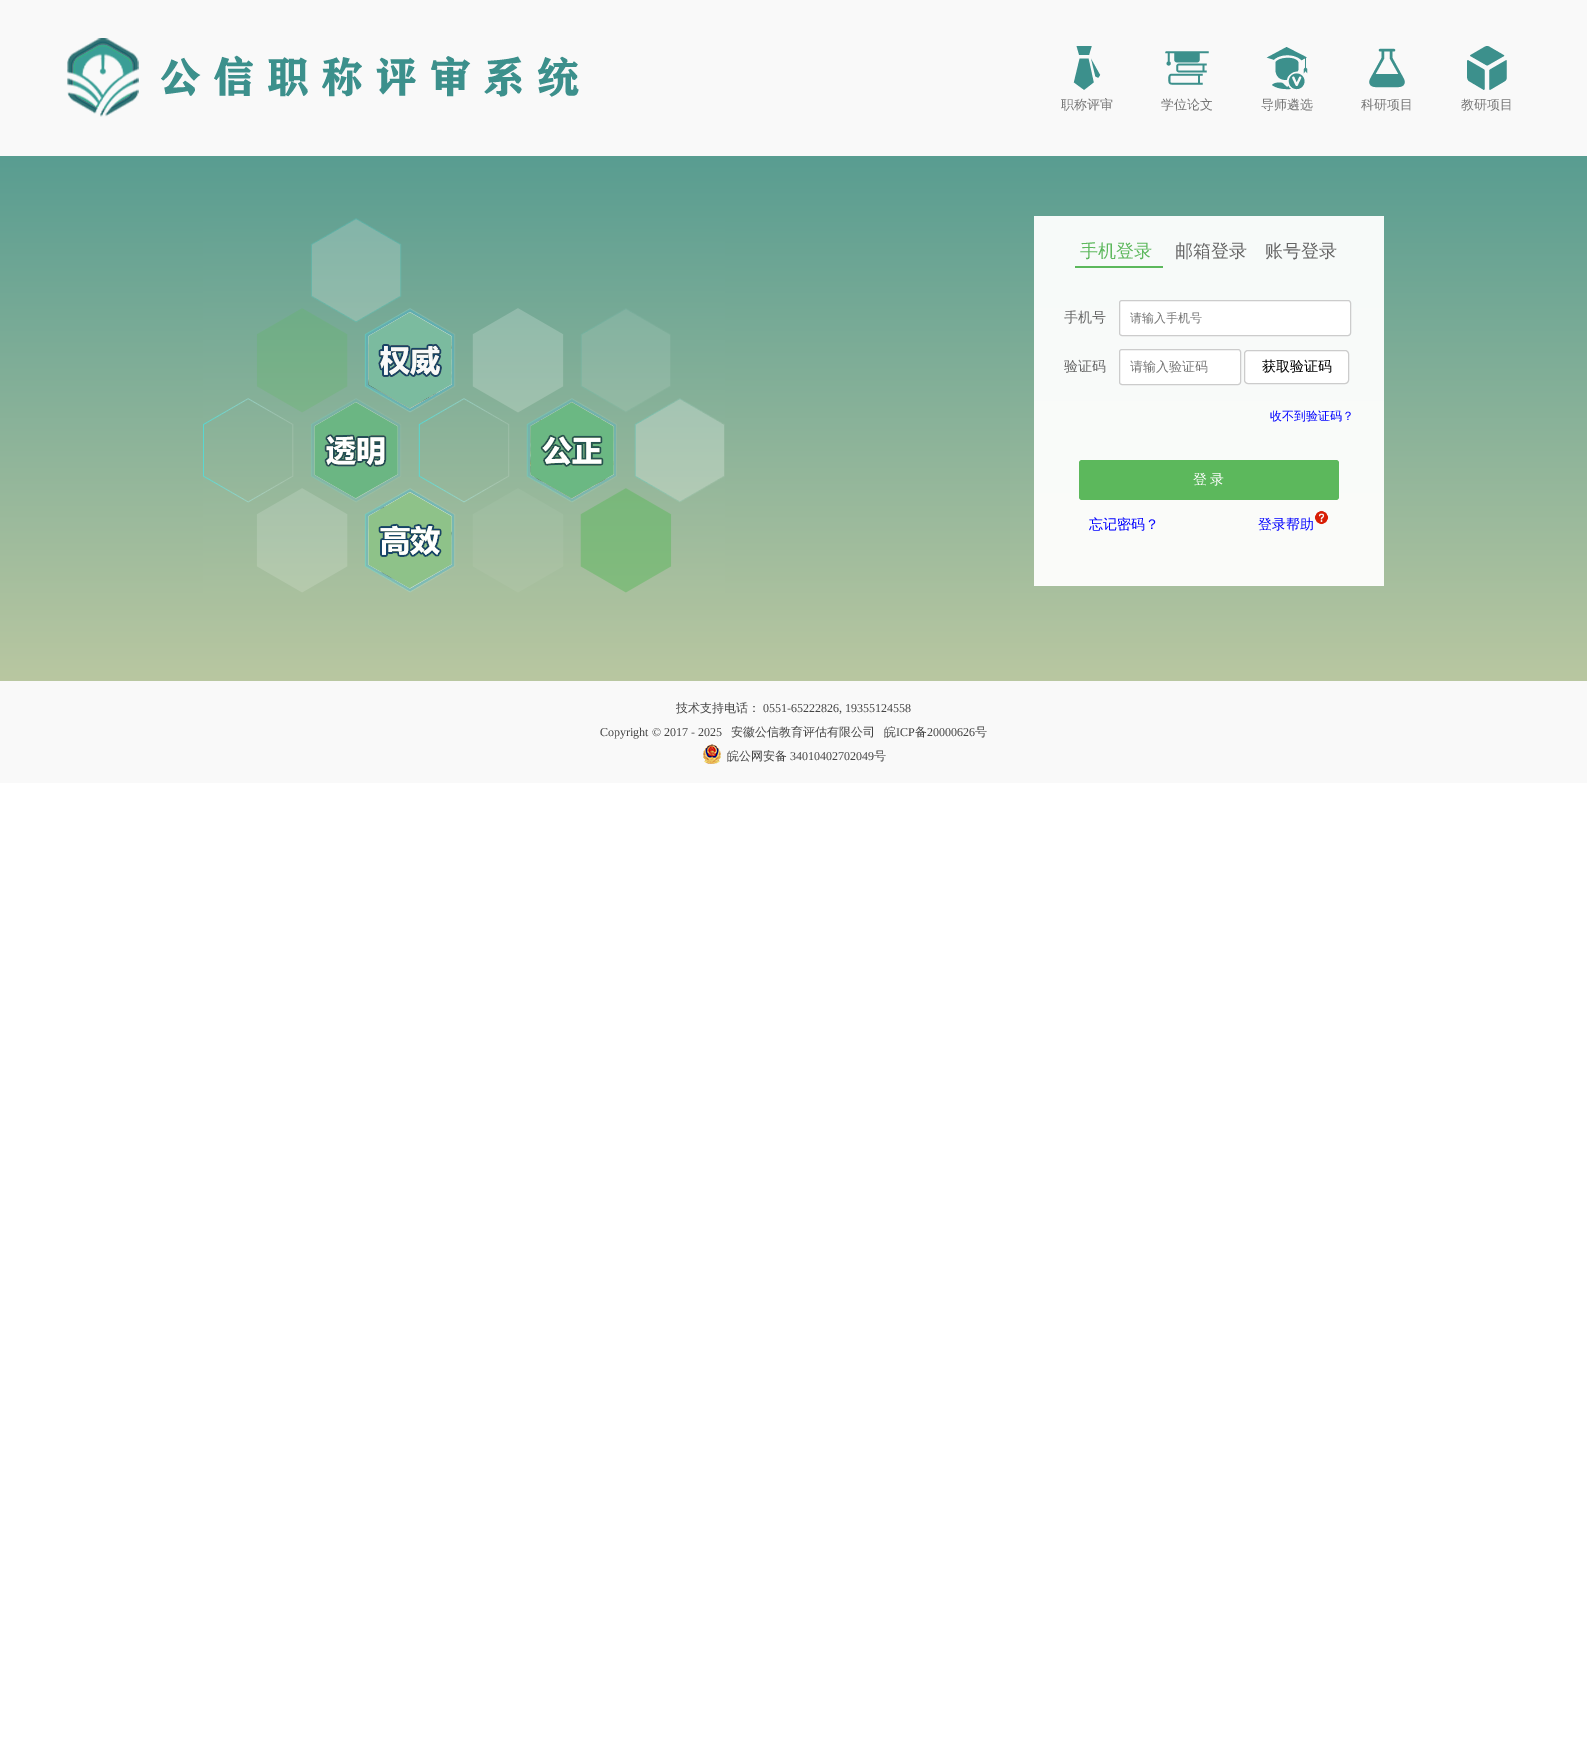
%!PS
<< /PageSize [1587 1748] >> setpagedevice
/rgb { 3 { 255 div 3 1 roll } repeat setrgbcolor } def
/font { [ exch dup neg 0 0 3 -1 roll 0 0 ] selectfont } def
/text { moveto show } def
/roundrect { 5 dict begin { /r /h /w /y /x } { exch def } forall
  x r add y moveto x w add y 2 copy h add r arct x w add y h add x 1 index r arct
  x y h add x y r arct x y 2 copy exch w add exch r arct closepath end } def
/picture { 5 dict begin { /h /w /y /x /name } { exch def } forall
  gsave x y translate w h scale
  w h 8 [w 0 0 h 0 0] name (r) file false 3 colorimage grestore end } def
0 1748 translate 1 -1 scale
4 setmiterlimit
255 255 255 rgb
0 0 1587 1748 rectfill
249 249 249 rgb
0 0 1587 156 rectfill
(img_01.rgb) 67 38 512 79 picture
(img_02.rgb) 1073 46 28 44 picture
(img_03.rgb) 1165 51 44 34 picture
(img_04.rgb) 1266 47 42 43 picture
(img_05.rgb) 1369 48 36 40 picture
(img_06.rgb) 1467 46 40 44 picture
gsave 0 156 moveto 1587 0 rlineto 0 525 rlineto -1587 0 rlineto closepath clip newpath
<< /ShadingType 2 /ColorSpace /DeviceRGB /Coords [794 0 794 681] /Extend [true true] /Function << /FunctionType 2 /Domain [0 1] /C0 [0.235 0.565 0.549] /C1 [0.725 0.78 0.631] /N 1 >> >> shfill grestore
gsave 1034 216 moveto 350 0 rlineto 0 370 rlineto -350 0 rlineto closepath clip newpath
<< /ShadingType 2 /ColorSpace /DeviceRGB /Coords [794 0 794 681] /Extend [true true] /Function << /FunctionType 2 /Domain [0 1] /C0 [0.961 0.976 0.976] /C1 [0.988 0.988 0.98] /N 1 >> >> shfill grestore
(img_07.rgb) 203 218 522 375 picture
(img_08.rgb) 368 312 84 97 picture
(img_09.rgb) 368 312 84 97 picture
(img_10.rgb) 314 402 84 97 picture
(img_11.rgb) 314 402 84 97 picture
(img_12.rgb) 530 402 84 97 picture
(img_13.rgb) 530 402 84 97 picture
(img_14.rgb) 368 492 84 97 picture
(img_15.rgb) 368 492 84 97 picture
92 184 92 rgb
1075 266 88 2 rectfill
255 255 255 rgb
1119.5 300.5 231 35 2.5 roundrect gsave fill grestore
204 204 204 rgb
stroke
255 255 255 rgb
1119.5 349.5 121 35 2.5 roundrect gsave fill grestore
204 204 204 rgb
stroke
255 255 255 rgb
1244.5 350.5 104 33 3.5 roundrect gsave fill grestore
204 204 204 rgb
stroke
92 184 92 rgb
1079 460 260 40 3 roundrect fill
(img_16.rgb) 1314 510 15 15 picture
249 249 249 rgb
0 681 1587 102 rectfill
(img_17.rgb) 703 744 18 20 picture
/WenQuanYiZenHei-Medium 13 font
117 117 117 rgb
(职称评审) 1061 109 text
(学位论文) 1161 109 text
(导师遴选) 1261 109 text
(科研项目) 1361 109 text
(教研项目) 1461 109 text
/WenQuanYiZenHei-Medium 18 font
92 184 92 rgb
(手机登录) 1080 257 text
102 102 102 rgb
(邮箱登录) 1175 257 text
(账号登录) 1265 257 text
/WenQuanYiZenHei-Medium 14 font
(手机号) 1064 322 text
/WenQuanYiZenHei-Medium 12 font
117 117 117 rgb
(请输入手机号) 1130 322 text
/WenQuanYiZenHei-Medium 14 font
102 102 102 rgb
(验证码) 1064 371 text
/WenQuanYiZenHei-Medium 13 font
117 117 117 rgb
(请输入验证码) 1130 371 text
/WenQuanYiZenHei-Medium 14 font
0 0 0 rgb
(获取验证码) 1262 371 text
/WenQuanYiZenHei-Medium 12 font
0 0 255 rgb
(收不到验证码？) 1270 420 text
/WenQuanYiZenHei-Medium 14 font
255 255 255 rgb
1193 484 moveto -1 0 32 (登 录) widthshow
0 0 255 rgb
(忘记密码？) 1089 529 text
(登录帮助) 1258 529 text
/WenQuanYiZenHei-Medium 12 font
68 68 68 rgb
(技术支持电话：) 676 712 text
/LiberationSerif-Regular 12 font
(0551-65222826, 19355124558) 763 712 text
(Copyright © 2017 - 2025) 600 736 text
/WenQuanYiZenHei-Medium 12 font
(安徽公信教育评估有限公司) 731 736 text
(皖) 884 736 text
/LiberationSerif-Regular 12 font
(ICP) 896 736 text
/WenQuanYiZenHei-Medium 12 font
(备) 915 736 text
/LiberationSerif-Regular 12 font
(20000626) 927 736 text
/WenQuanYiZenHei-Medium 12 font
(号) 975 736 text
(皖公网安备) 727 760 text
/LiberationSerif-Regular 12 font
(34010402702049) 790 760 text
/WenQuanYiZenHei-Medium 12 font
(号) 874 760 text
showpage
